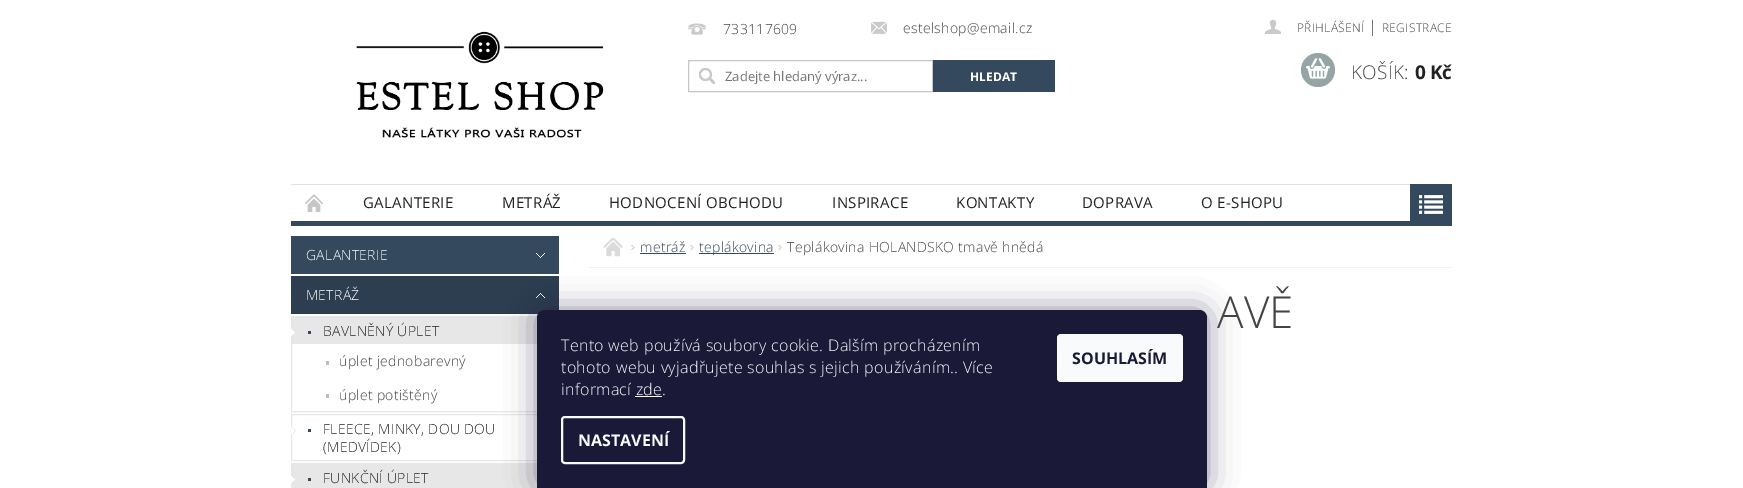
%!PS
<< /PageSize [1743 488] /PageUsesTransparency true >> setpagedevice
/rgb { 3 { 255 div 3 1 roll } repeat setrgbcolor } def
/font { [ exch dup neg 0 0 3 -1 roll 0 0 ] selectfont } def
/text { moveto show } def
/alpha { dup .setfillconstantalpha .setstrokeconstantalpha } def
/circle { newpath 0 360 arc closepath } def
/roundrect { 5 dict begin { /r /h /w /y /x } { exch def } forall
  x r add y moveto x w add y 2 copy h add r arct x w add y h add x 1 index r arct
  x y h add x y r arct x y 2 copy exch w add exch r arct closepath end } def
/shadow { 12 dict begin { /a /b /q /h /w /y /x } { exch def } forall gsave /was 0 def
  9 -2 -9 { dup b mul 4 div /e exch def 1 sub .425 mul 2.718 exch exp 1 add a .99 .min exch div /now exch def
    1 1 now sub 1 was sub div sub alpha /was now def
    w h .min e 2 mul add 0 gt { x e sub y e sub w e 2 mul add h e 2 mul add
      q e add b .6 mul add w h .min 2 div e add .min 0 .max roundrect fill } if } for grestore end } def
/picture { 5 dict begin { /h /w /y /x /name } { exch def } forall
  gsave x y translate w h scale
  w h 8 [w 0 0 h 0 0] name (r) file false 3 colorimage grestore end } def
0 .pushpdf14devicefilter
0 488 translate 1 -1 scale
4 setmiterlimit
255 255 255 rgb
0 0 1743 488 rectfill
52 73 94 rgb
291 221 1119 5 rectfill
(img_01.rgb) 356 31 248 107 picture
(img_02.rgb) 688 23 18 12 picture
(img_03.rgb) 871 21 16 13 picture
(img_04.rgb) 699 68 16 16 picture
198 198 198 rgb
688.5 60.5 244 31 rectstroke
52 73 94 rgb
933 60 122 32 rectfill
(img_05.rgb) 1265 19 16 15 picture
149 165 166 rgb
1318 70 17 circle fill
(img_06.rgb) 1306 58 24 21 picture
224 224 224 rgb
291 184 1119 1 rectfill
(img_07.rgb) 305 194 18 18 picture
52 73 94 rgb
1410 184 42 42 rectfill
(img_08.rgb) 1419 195 24 19 picture
291 236 268 38 rectfill
(img_09.rgb) 536 253 9 5 picture
44 62 80 rgb
291 276 268 38 rectfill
(img_10.rgb) 536 293 9 5 picture
231 231 231 rgb
291.5 316.5 267 95 rectstroke
292 317 246 27 rectfill
(img_11.rgb) 291 329 4 7 picture
52 73 94 rgb
308 331 3 3 rectfill
188 188 188 rgb
326 361 3 4 rectfill
326 394 3 4 rectfill
231 231 231 rgb
291.5 414.5 267 46 rectstroke
(img_12.rgb) 291 427 5 7 picture
52 73 94 rgb
308 429 3 3 rectfill
231 231 231 rgb
291.5 463.5 267 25 rectstroke
292 464 245 24 rectfill
(img_11.rgb) 291 476 4 7 picture
52 73 94 rgb
308 478 3 3 rectfill
242 242 242 rgb
589 267 863 1 rectfill
(img_13.rgb) 603 238 20 19 picture
(img_14.rgb) 631 245 4 5 picture
52 73 94 rgb
640 253 46 1 rectfill
(img_14.rgb) 690 245 4 5 picture
699 253 75 1 rectfill
(img_14.rgb) 778 245 4 5 picture
27 25 57 rgb
537 310 670 178 8 15 0.5 shadow
26 25 55 rgb
545 310 moveto 654 0 rlineto 4.5 0 8 3.5 8 8 rcurveto 0 170 rlineto -670 0 rlineto 0 -170 rlineto 0 -4.5 3.5 -8 8 -8 rcurveto closepath fill
248 250 251 rgb
635 396 27 1 rectfill
2 setlinewidth
562 417 122 46 3 roundrect stroke
1057 334 126 48 4 roundrect fill
/OpenSans-Light 14 font
68 68 68 rgb
723 34 moveto 0.32 0 (733117609) ashow
903 33 moveto 0.32 0 (estelshop@email.cz) ashow
/OpenSans-Regular 13 font
117 117 117 rgb
(Zadejte hledaný výraz...) 725 81 text
/OpenSans-Bold 12 font
255 255 255 rgb
(HLEDAT) 970 81 text
/OpenSans-Light 12 font
68 68 68 rgb
1297 32 moveto 0.32 0 (PŘIHLÁŠENÍ) ashow
/OpenSans-Light 16 font
1368 32 moveto 0.32 0 (|) ashow
/OpenSans-Light 12 font
1382 32 moveto 0.32 0 (REGISTRACE) ashow
/OpenSans-Light 19 font
1351 79 moveto 0.32 0 (KOŠÍK:) ashow
/OpenSans-Bold 19 font
34 34 34 rgb
1415 79 moveto -0.5 0 (0 Kč) ashow
/OpenSans-Regular 15 font
363 208 moveto 0.32 0 (GALANTERIE) ashow
502 208 moveto 0.32 0 (METRÁŽ) ashow
609 208 moveto 0.32 0 (HODNOCENÍ OBCHODU) ashow
832 208 moveto 0.32 0 (INSPIRACE) ashow
956 208 moveto 0.32 0 (KONTAKTY) ashow
1082 208 moveto 0.32 0 (DOPRAVA) ashow
1201 208 moveto 0.32 0 (O E-SHOPU) ashow
/OpenSans-Light 14 font
255 255 255 rgb
306 260 moveto 0.32 0 (GALANTERIE) ashow
306 300 moveto 0.32 0 (METRÁŽ) ashow
34 34 34 rgb
323 336 moveto 0.32 0 (BAVLNĚNÝ ÚPLET) ashow
68 68 68 rgb
339 366 moveto 0.32 0 (úplet jednobarevný) ashow
339 400 moveto 0.32 0 (úplet potištěný) ashow
34 34 34 rgb
323 434 moveto 0.32 0 (FLEECE, MINKY, DOU DOU) ashow
323 452 moveto 0.32 0 (\(MEDVÍDEK\)) ashow
323 483 moveto 0.32 0 (FUNKČNÍ ÚPLET) ashow
52 73 94 rgb
640 252 moveto 0.32 0 (metráž) ashow
699 252 moveto 0.32 0 (teplákovina) ashow
68 68 68 rgb
787 252 moveto 0.32 0 (Teplákovina HOLANDSKO tmavě hnědá) ashow
/OpenSans-Light 44 font
1217 328 moveto 0.32 0 (AVĚ) ashow
/OpenSans-Light 16 font
248 250 251 rgb
561 351 moveto 0.32 0 (Tento web používá soubory cookie. Dalším procházením) ashow
561 373 moveto 0.32 0 (tohoto webu vyjadřujete souhlas s jejich používáním.. Více) ashow
561 395 moveto 0.32 0 (informací zde.) ashow
/OpenSans-Bold 16 font
(NASTAVENÍ) 578 446 text
26 25 55 rgb
(SOUHLASÍM) 1072 364 text
.poppdf14devicefilter showpage
